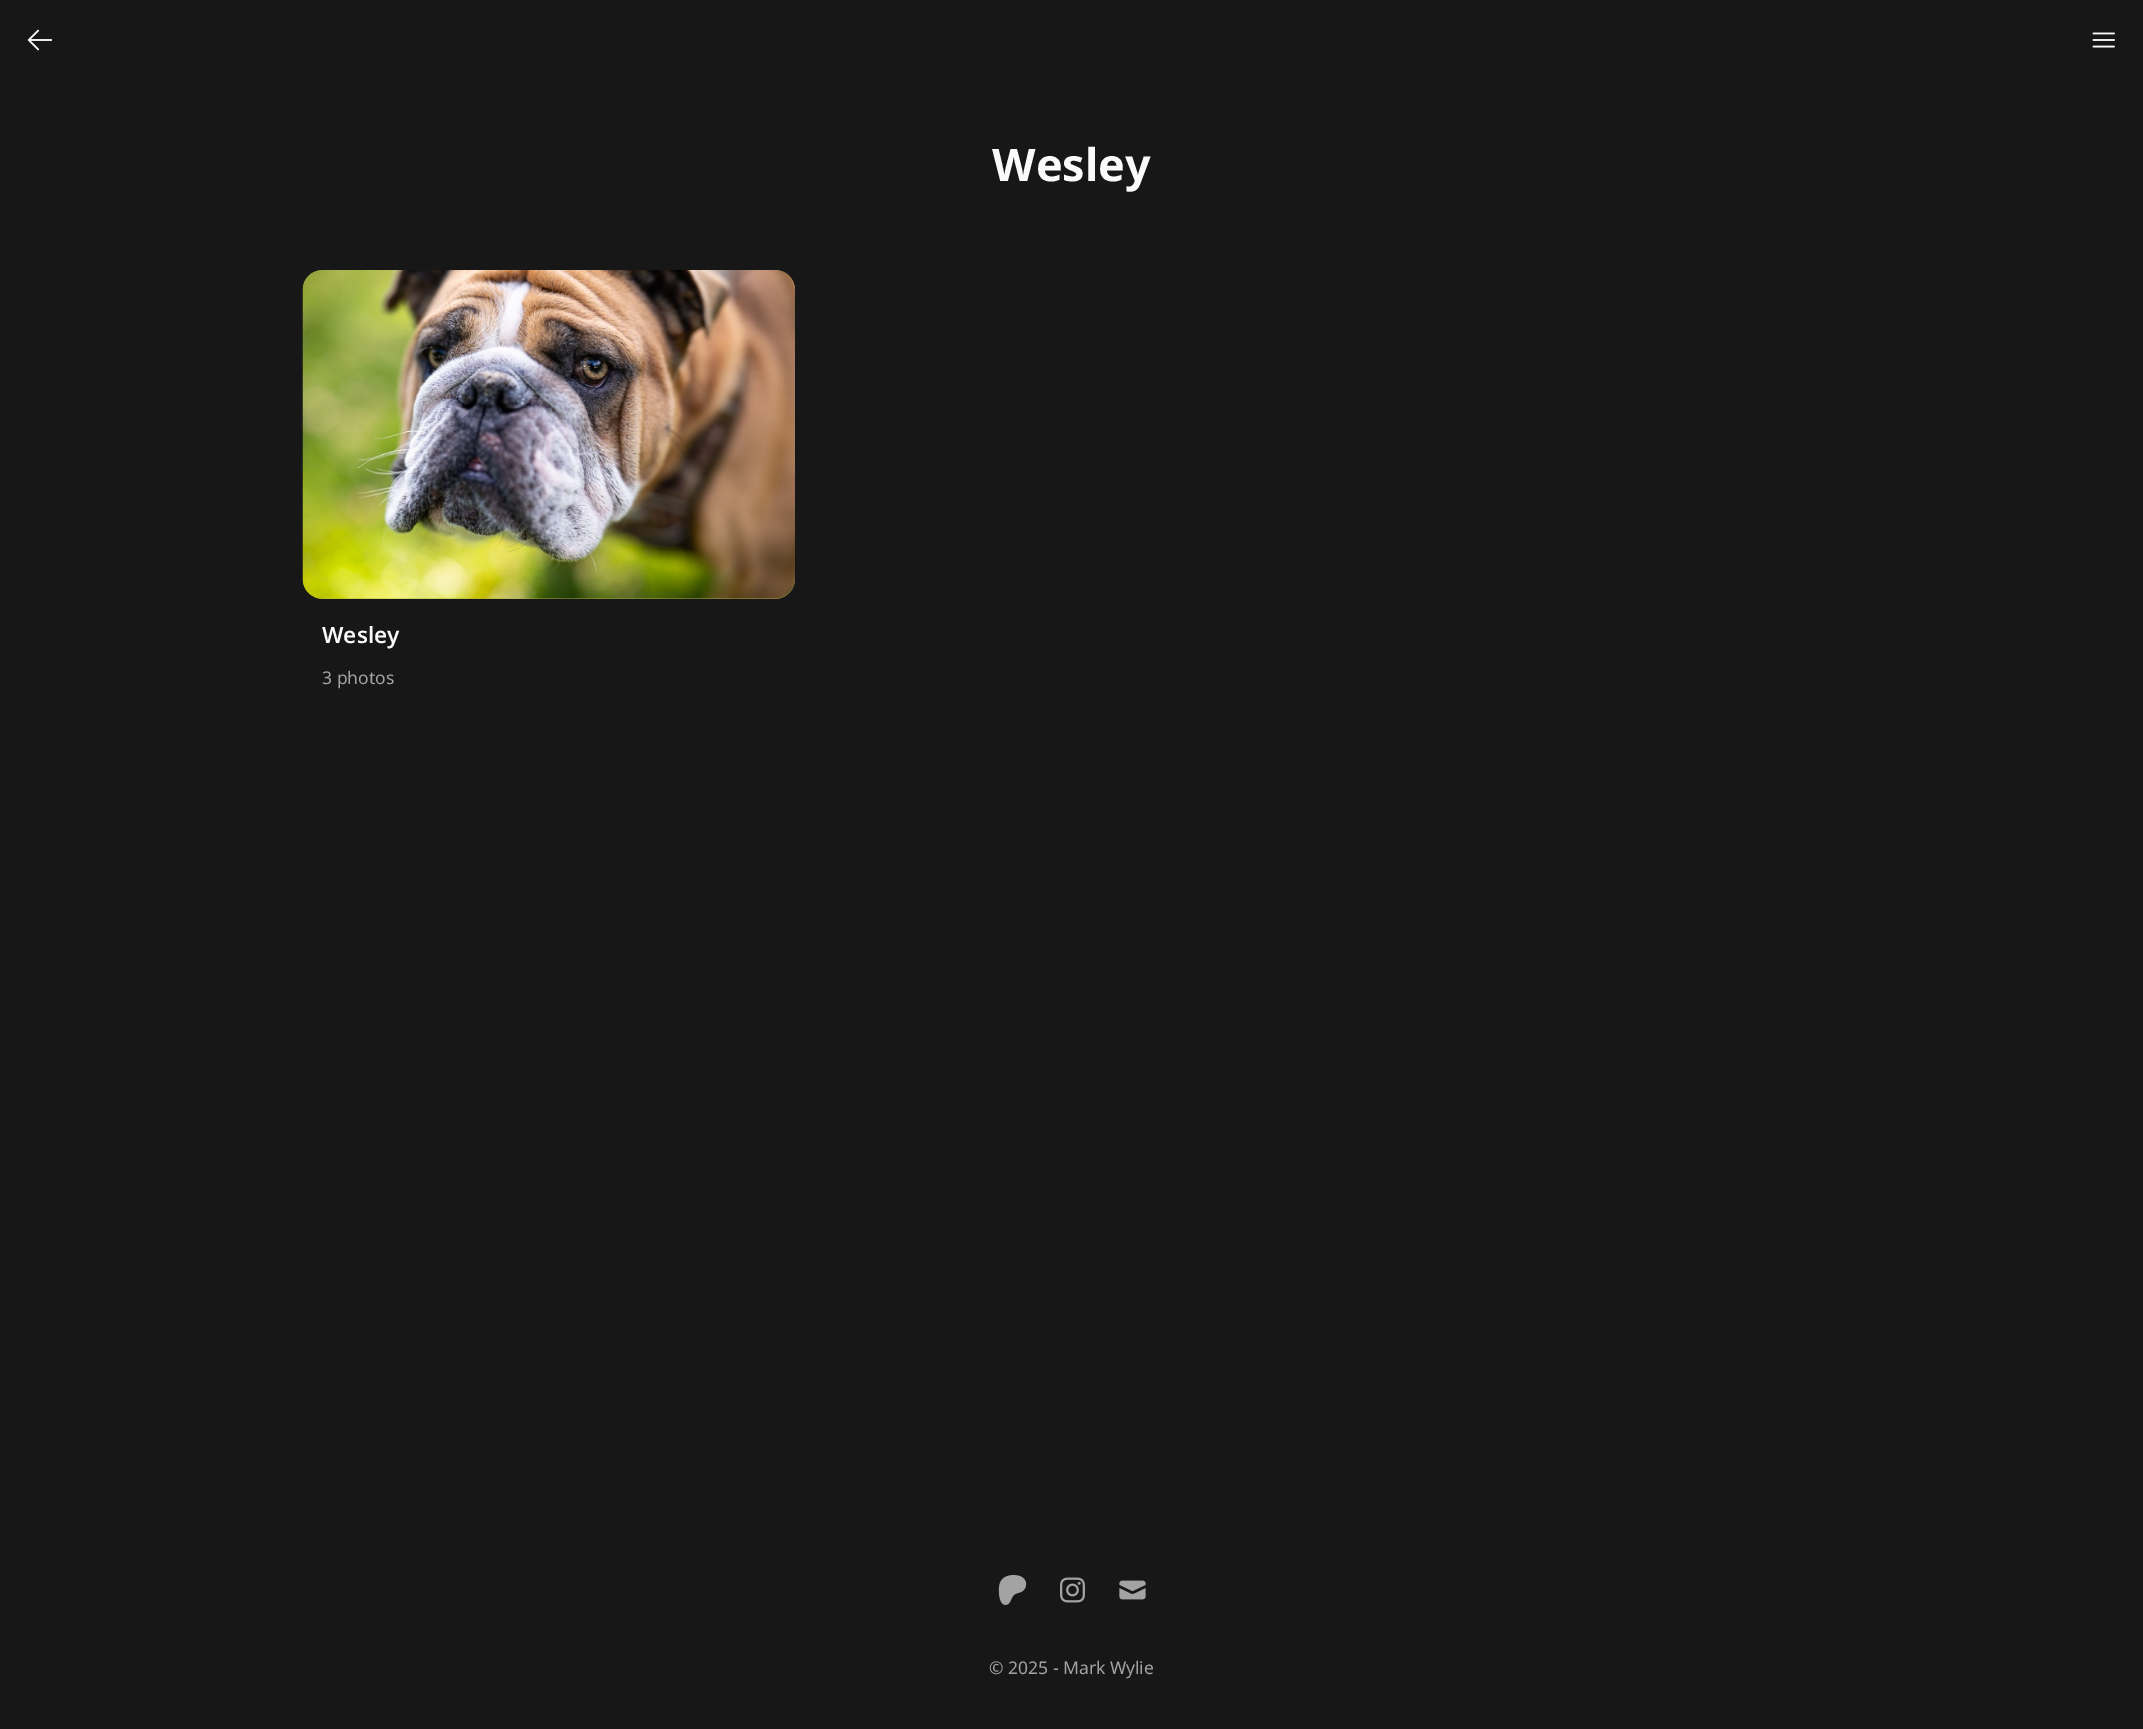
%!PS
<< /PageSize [2143 1729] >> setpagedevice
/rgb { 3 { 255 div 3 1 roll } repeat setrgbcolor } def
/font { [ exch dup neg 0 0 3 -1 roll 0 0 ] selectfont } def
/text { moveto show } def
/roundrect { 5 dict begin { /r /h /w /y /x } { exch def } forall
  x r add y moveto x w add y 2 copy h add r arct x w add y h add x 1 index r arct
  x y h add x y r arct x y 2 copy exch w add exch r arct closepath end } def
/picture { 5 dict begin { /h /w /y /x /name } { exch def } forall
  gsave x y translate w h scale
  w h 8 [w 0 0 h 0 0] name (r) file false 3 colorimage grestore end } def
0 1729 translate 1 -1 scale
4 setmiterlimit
23 23 23 rgb
0 0 2143 1729 rectfill
(img_01.rgb) 27 29 26 22 picture
(img_02.rgb) 2092 32 23 16 picture
178 175 77 rgb
303 270 492 329 20 roundrect fill
(img_03.rgb) 302 270 493 329 picture
(img_04.rgb) 998 1575 29 30 picture
(img_05.rgb) 1060 1577 25 26 picture
(img_06.rgb) 1119 1580 27 20 picture
/NotoSans-Bold 45 font
250 250 250 rgb
(Wesley) 992 181 text
/NotoSans-SemiBold 22.5 font
(Wesley) 322 643 text
/NotoSans-Regular 17.5 font
163 163 163 rgb
(3 photos) 322 684 text
(© 2025 - Mark Wylie) 989 1674 text
showpage
